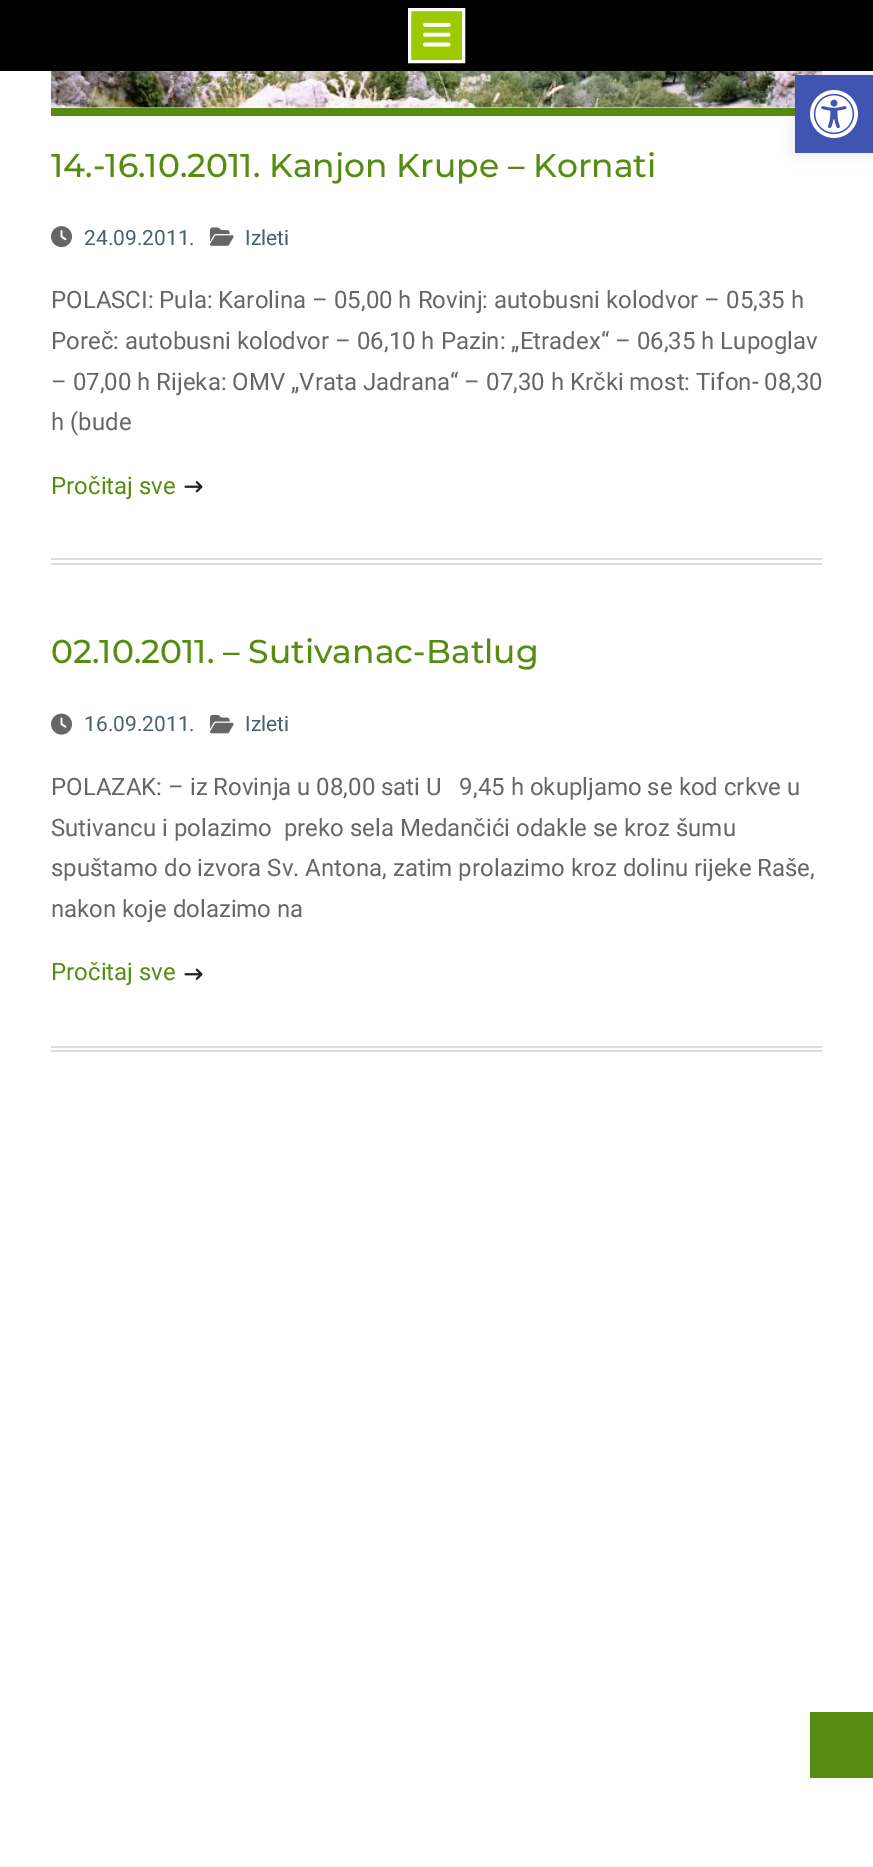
%!PS
<< /PageSize [873 1867] /PageUsesTransparency true >> setpagedevice
/rgb { 3 { 255 div 3 1 roll } repeat setrgbcolor } def
/font { [ exch dup neg 0 0 3 -1 roll 0 0 ] selectfont } def
/text { moveto show } def
/alpha { dup .setfillconstantalpha .setstrokeconstantalpha } def
/roundrect { 5 dict begin { /r /h /w /y /x } { exch def } forall
  x r add y moveto x w add y 2 copy h add r arct x w add y h add x 1 index r arct
  x y h add x y r arct x y 2 copy exch w add exch r arct closepath end } def
/shadow { 12 dict begin { /a /b /q /h /w /y /x } { exch def } forall gsave /was 0 def
  9 -2 -9 { dup b mul 4 div /e exch def 1 sub .425 mul 2.718 exch exp 1 add a .99 .min exch div /now exch def
    1 1 now sub 1 was sub div sub alpha /was now def
    w h .min e 2 mul add 0 gt { x e sub y e sub w e 2 mul add h e 2 mul add
      q e add b .6 mul add w h .min 2 div e add .min 0 .max roundrect fill } if } for grestore end } def
/picture { 5 dict begin { /h /w /y /x /name } { exch def } forall
  gsave x y translate w h scale
  w h 8 [w 0 0 h 0 0] name (r) file false 3 colorimage grestore end } def
0 .pushpdf14devicefilter
0 1867 translate 1 -1 scale
4 setmiterlimit
255 255 255 rgb
0 0 873 1867 rectfill
86 140 17 rgb
51 108 744 8 rectfill
(img_03.rgb) 51 71 771 37 picture
0 0 0 rgb
795 75 78 78 0 7.5 0.1 shadow
64 84 178 rgb
795 75 78 78 rectfill
(img_01.rgb) 810 90 48 48 picture
0 0 0 rgb
0 0 873 71 rectfill
156 201 0 rgb
409.5 9.5 moveto 54 0 rlineto 0 52 rlineto -54 0 rlineto closepath gsave fill grestore
255 255 254 rgb
3 setlinewidth
stroke
(img_02.rgb) 423 22 28 25 picture
221 221 221 rgb
51 558 771 2 rectfill
51 563 771 2 rectfill
(img_04.rgb) 51 226 21 22 picture
(img_05.rgb) 210 227 24 19 picture
(img_06.rgb) 184 481 19 12 picture
51 1046 771 2 rectfill
51 1050 771 2 rectfill
(img_07.rgb) 51 713 21 22 picture
(img_08.rgb) 210 714 24 20 picture
(img_09.rgb) 184 968 19 12 picture
86 140 17 rgb
810 1712 63 66 rectfill
/Montserrat-Medium 33 font
(14.-16.10.2011. Kanjon Krupe – Kornati) 51 177 text
/Roboto-Regular 21 font
73 97 107 rgb
(24.09.2011.) 84 245 text
(Izleti) 245 245 text
/Roboto-Regular 24 font
102 102 102 rgb
(POLASCI: Pula: Karolina – 05,00 h Rovinj: autobusni kolodvor – 05,35 h) 51 308 text
(Poreč: autobusni kolodvor – 06,10 h Pazin: „Etradex“ – 06,35 h Lupoglav) 51 349 text
(– 07,00 h Rijeka: OMV „Vrata Jadrana“ – 07,30 h Krčki most: Tifon- 08,30) 51 390 text
(h \(bude) 51 430 text
86 140 17 rgb
(Pročitaj sve) 51 494 text
/Montserrat-Medium 33 font
(02.10.2011. – Sutivanac-Batlug) 51 663 text
/Roboto-Regular 21 font
73 97 107 rgb
(16.09.2011.) 84 731 text
(Izleti) 245 731 text
/Roboto-Regular 24 font
102 102 102 rgb
(POLAZAK: – iz Rovinja u 08,00 sati U   9,45 h okupljamo se kod crkve u) 51 795 text
(Sutivancu i polazimo  preko sela Medančići odakle se kroz šumu) 51 836 text
(spuštamo do izvora Sv. Antona, zatim prolazimo kroz dolinu rijeke Raše,) 51 876 text
(nakon koje dolazimo na) 51 917 text
86 140 17 rgb
(Pročitaj sve) 51 980 text
.poppdf14devicefilter showpage
